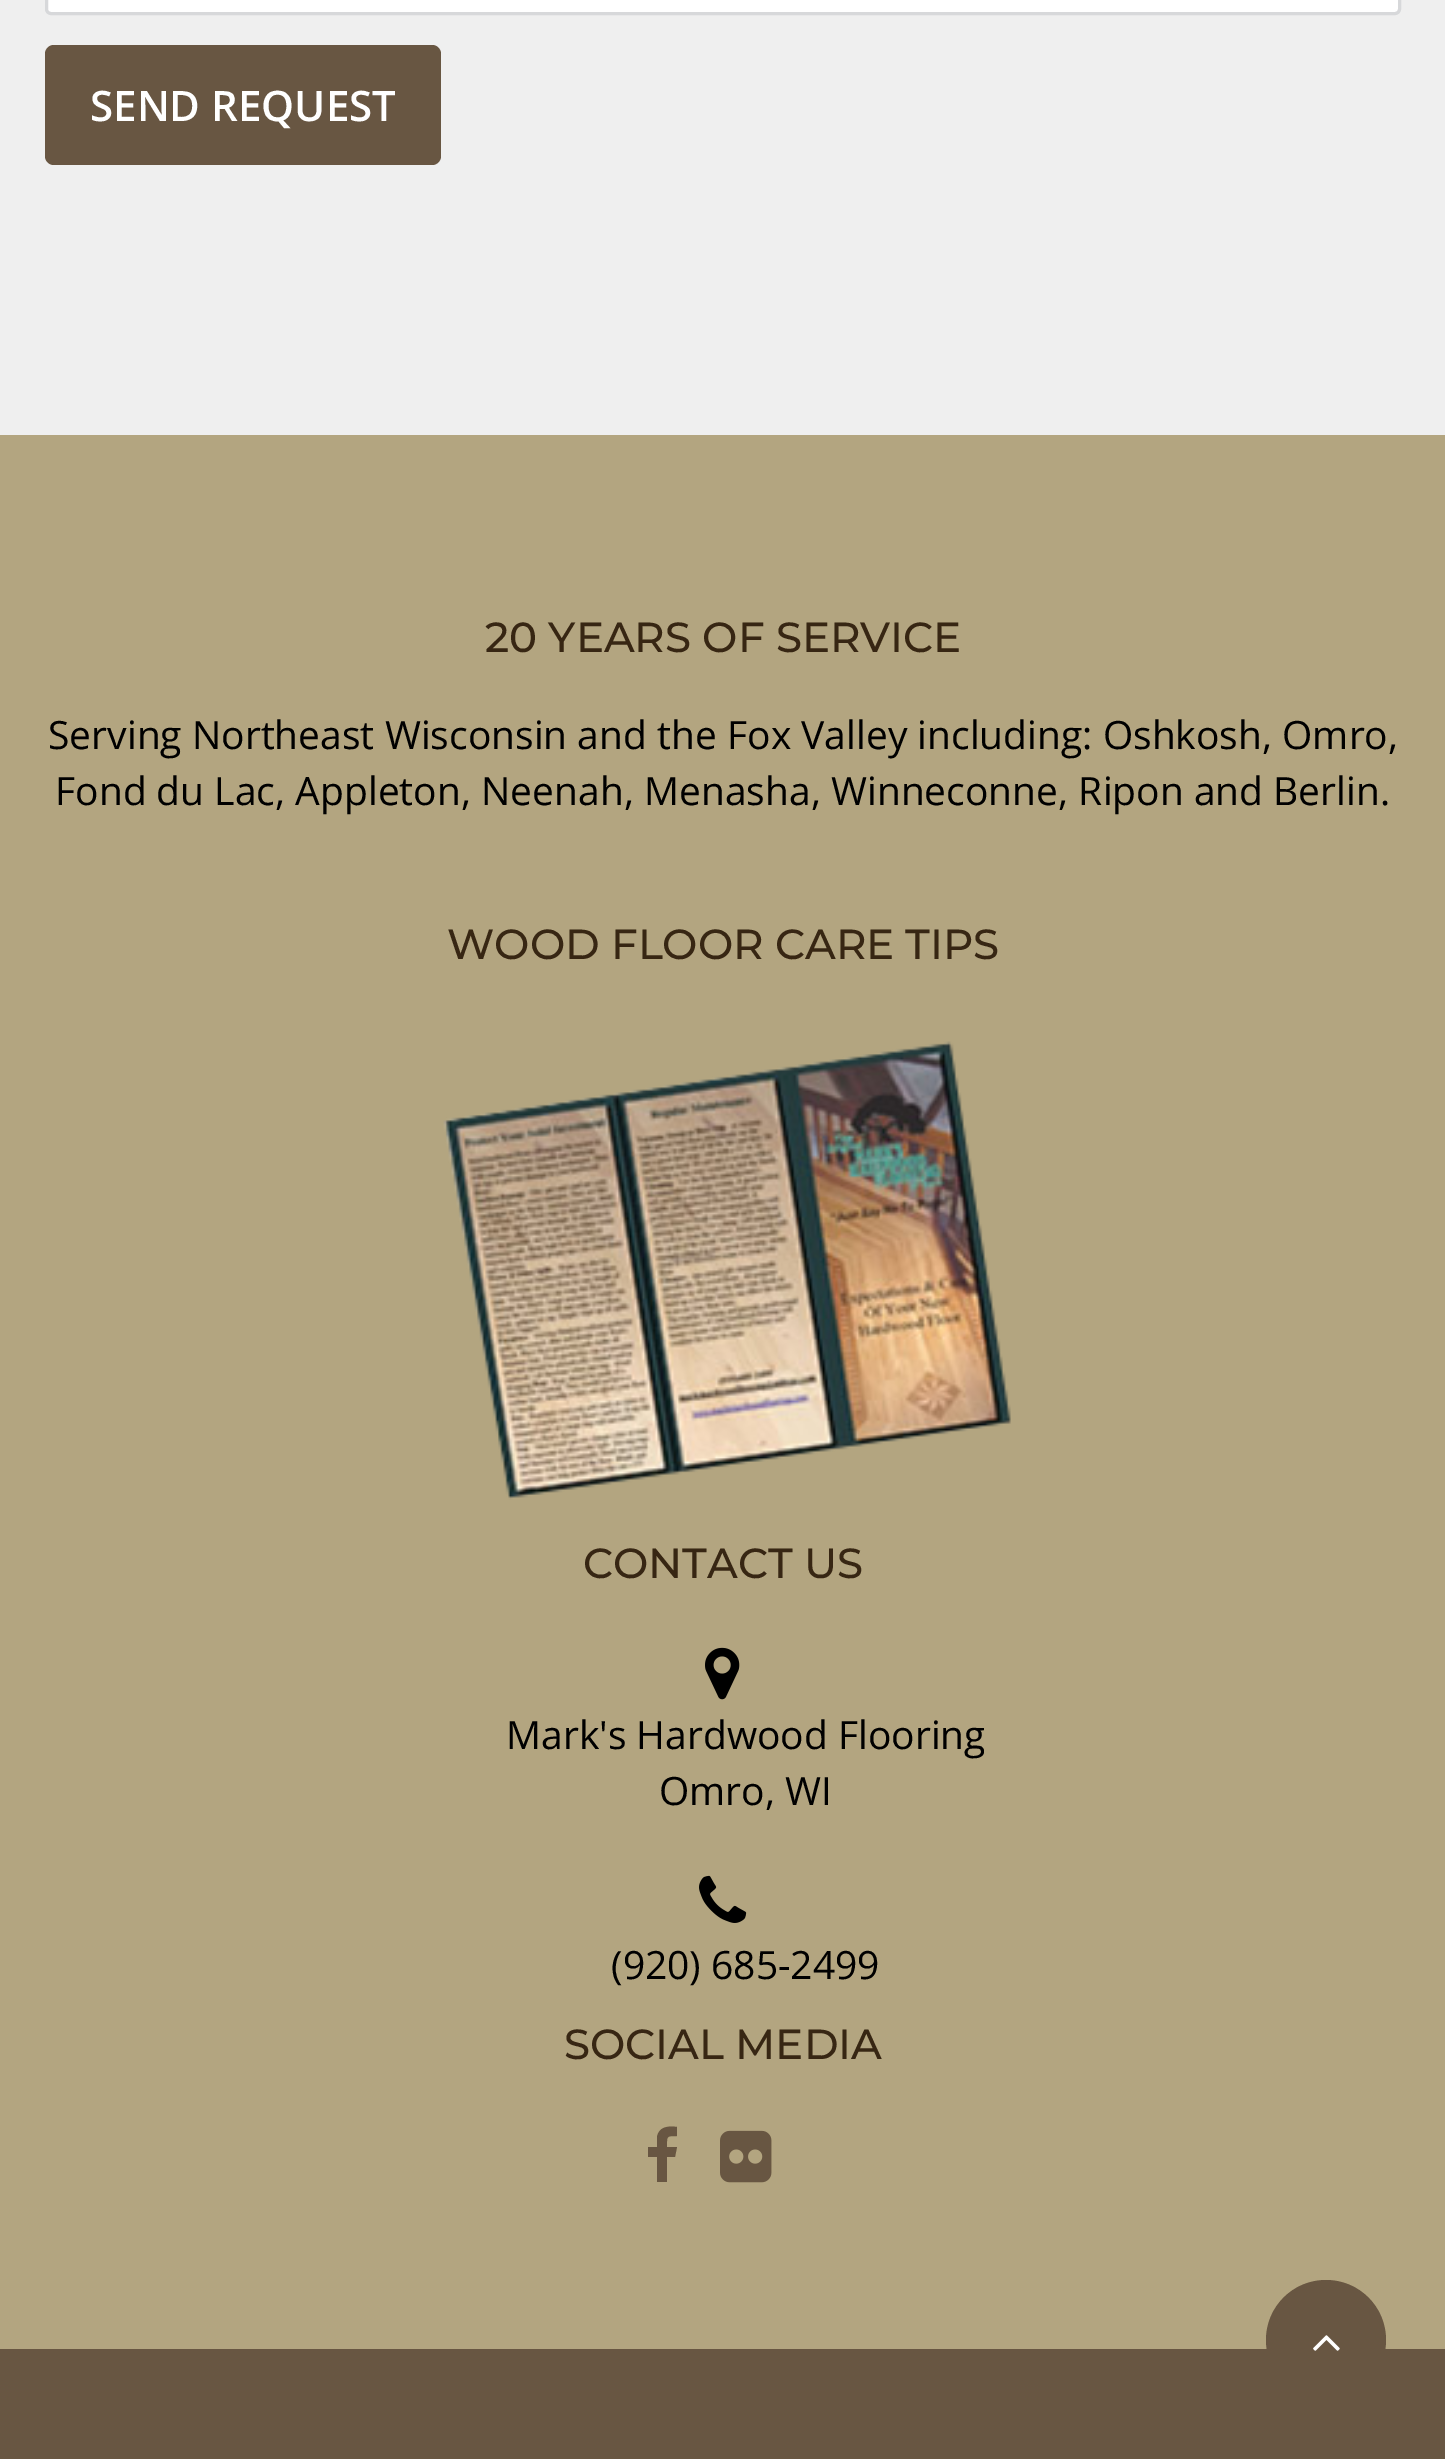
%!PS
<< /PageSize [1445 2459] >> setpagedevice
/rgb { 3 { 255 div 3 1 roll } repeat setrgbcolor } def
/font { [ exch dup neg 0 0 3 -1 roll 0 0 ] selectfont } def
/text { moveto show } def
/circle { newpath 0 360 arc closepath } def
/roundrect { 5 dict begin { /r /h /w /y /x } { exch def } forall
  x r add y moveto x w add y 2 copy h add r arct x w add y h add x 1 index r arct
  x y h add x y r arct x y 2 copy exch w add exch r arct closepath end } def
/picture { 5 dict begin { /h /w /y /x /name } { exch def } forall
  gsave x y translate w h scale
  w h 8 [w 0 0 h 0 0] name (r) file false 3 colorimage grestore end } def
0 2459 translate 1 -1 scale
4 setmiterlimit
239 239 239 rgb
0 0 1445 2459 rectfill
255 255 255 rgb
46.5 -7.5 1353 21 4.5 roundrect gsave fill grestore
215 216 218 rgb
3 setlinewidth
stroke
104 86 66 rgb
45 45 396 120 9 roundrect fill
179 165 128 rgb
0 435 1445 1914 rectfill
(img_01.rgb) 443 1041 568 459 picture
(img_02.rgb) 705 1647 35 53 picture
(img_03.rgb) 699 1875 48 48 picture
104 86 66 rgb
677 2127 moveto 0 9 rlineto -11 0 -10 0 -10 11 rcurveto 10 0 rlineto -2 10 rlineto -8 0 rlineto 0 25 rlineto -10 0 rlineto 0 -25 rlineto -9 0 rlineto 0 -10 rlineto 9 0 rlineto 0 -10 rlineto 2 -11 12 -11 20 -10 rcurveto closepath fill
(img_04.rgb) 720 2130 52 53 picture
0 2349 1445 110 rectfill
1326 2340 60 circle fill
(img_05.rgb) 1313 2335 27 16 picture
/OpenSans-SemiBold 42 font
255 255 255 rgb
(SEND REQUEST) 90 121 text
/Montserrat-Medium 42 font
55 38 19 rgb
(20 YEARS OF SERVICE) 485 652 text
/OpenSans-Regular 39 font
0 0 0 rgb
(Serving Northeast Wisconsin and the Fox Valley including: Oshkosh, Omro,) 48 749 text
(Fond du Lac, Appleton, Neenah, Menasha, Winneconne, Ripon and Berlin.) 55 805 text
/Montserrat-Medium 42 font
55 38 19 rgb
(WOOD FLOOR CARE TIPS) 447 959 text
(CONTACT US) 583 1578 text
gsave
462 1707 522 111 rectclip
/OpenSans-Regular 39 font
0 0 0 rgb
(Mark's Hardwood Flooring) 506 1749 text
grestore
/OpenSans-Regular 39 font
0 0 0 rgb
(Omro, WI) 659 1805 text
(\(920\) 685-2499) 611 1979 text
/Montserrat-Medium 42 font
55 38 19 rgb
(SOCIAL MEDIA) 564 2059 text
showpage
